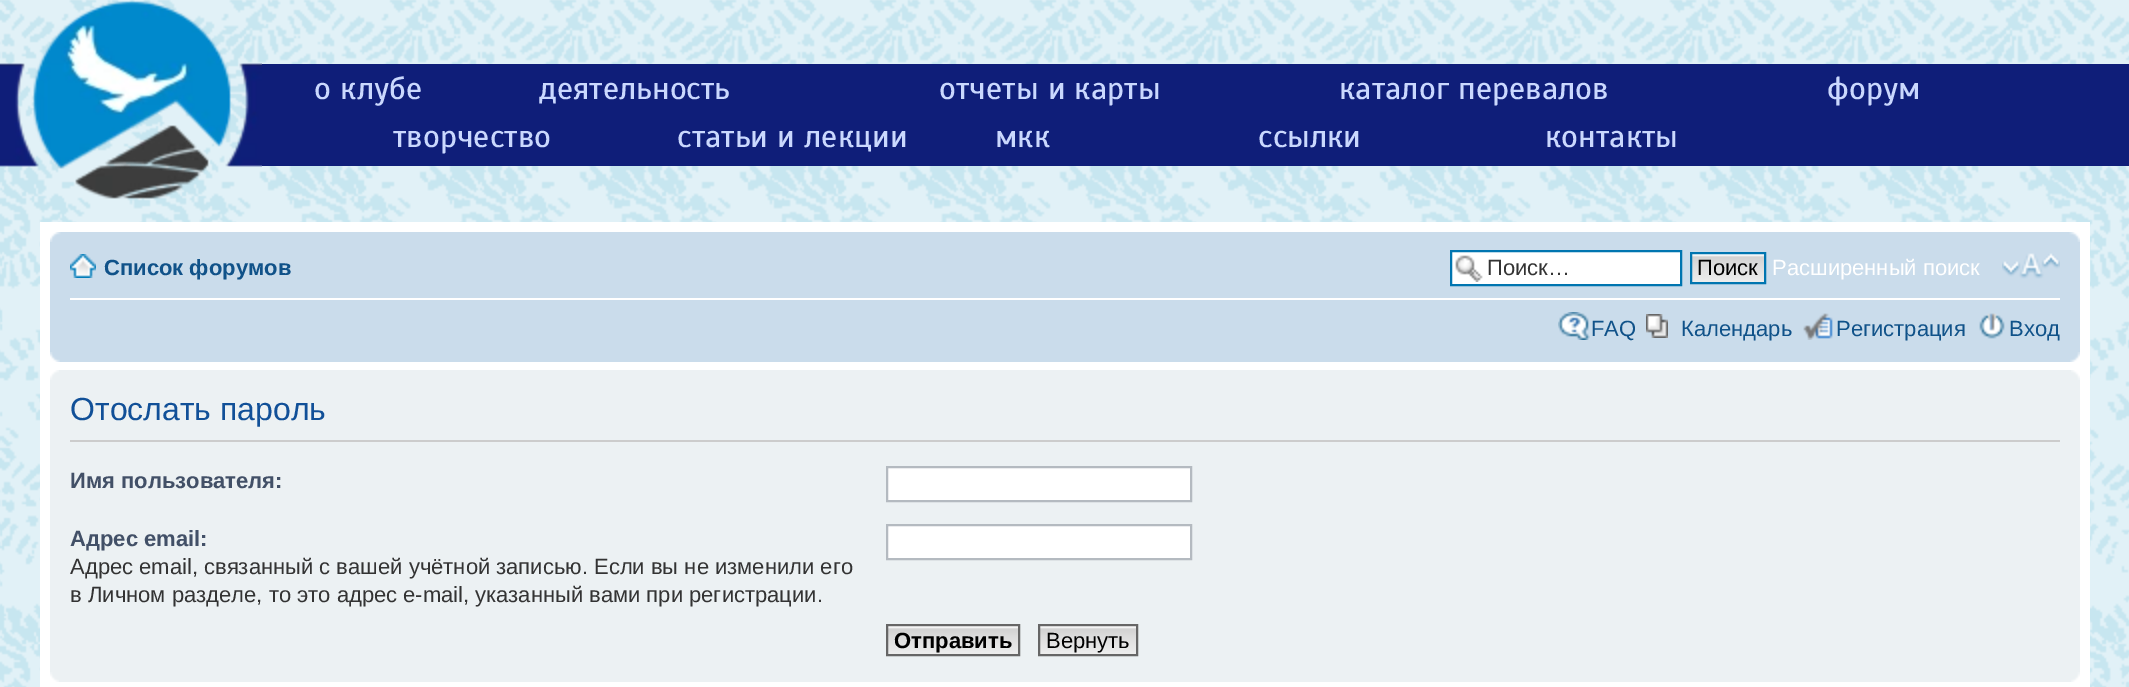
%!PS
<< /PageSize [2129 687] >> setpagedevice
/rgb { 3 { 255 div 3 1 roll } repeat setrgbcolor } def
/font { [ exch dup neg 0 0 3 -1 roll 0 0 ] selectfont } def
/text { moveto show } def
/picture { 5 dict begin { /h /w /y /x /name } { exch def } forall
  gsave x y translate w h scale
  w h 8 [w 0 0 h 0 0] name (r) file false 3 colorimage grestore end } def
0 687 translate 1 -1 scale
4 setmiterlimit
255 255 255 rgb
0 0 2129 687 rectfill
(img_01.rgb) 0 0 2129 687 picture
(img_02.rgb) 0 1 262 198 picture
15 30 121 rgb
262 64 1867 102 rectfill
255 255 255 rgb
40 222 2050 465 rectfill
202 220 235 rgb
50 232 2030 130 rectfill
(img_03.rgb) 50 232 11 10 picture
(img_04.rgb) 2069 232 11 10 picture
255 255 255 rgb
70 298 1990 2 rectfill
(img_05.rgb) 70 254 26 24 picture
1452 252 228 32 rectfill
(img_06.rgb) 1455 255 28 27 picture
0 117 176 rgb
2 setlinewidth
1451 251 230 34 rectstroke
(img_07.rgb) 1692 254 72 28 picture
1691 253 74 30 rectstroke
(img_08.rgb) 2002 253 58 26 picture
(img_09.rgb) 1558 312 32 28 picture
(img_10.rgb) 1646 314 22 24 picture
(img_11.rgb) 1803 313 30 27 picture
(img_12.rgb) 1979 313 26 26 picture
(img_13.rgb) 50 352 10 10 picture
(img_14.rgb) 2070 352 10 10 picture
236 241 243 rgb
50 370 2030 312 rectfill
(img_15.rgb) 50 370 9 10 picture
(img_16.rgb) 2071 370 9 10 picture
204 204 204 rgb
70 440 1990 2 rectfill
255 255 255 rgb
887 467 moveto 304 0 rlineto 0 34 rlineto -304 0 rlineto closepath gsave fill grestore
180 186 192 rgb
stroke
255 255 255 rgb
887 525 moveto 304 0 rlineto 0 34 rlineto -304 0 rlineto closepath gsave fill grestore
180 186 192 rgb
stroke
(img_17.rgb) 888 626 130 28 picture
102 102 102 rgb
887 625 132 30 rectstroke
(img_18.rgb) 1040 626 96 28 picture
1039 625 98 30 rectstroke
(img_19.rgb) 50 672 9 10 picture
(img_20.rgb) 2071 672 9 10 picture
/Scada-Regular 32 font
202 216 254 rgb
(о клубе) 314 99 text
(деятельность) 539 99 text
(отчеты и карты) 939 99 text
(каталог перевалов) 1339 99 text
(форум) 1827 99 text
(творчество) 393 147 text
(статьи и лекции) 677 147 text
(мкк) 995 147 text
(ссылки) 1258 147 text
(контакты) 1545 147 text
/LiberationSans-Bold 22 font
16 82 137 rgb
(Список форумов) 104 275 text
/LiberationSans-Regular 22 font
51 51 51 rgb
(Поиск…) 1487 275 text
0 0 0 rgb
(Поиск) 1697 275 text
255 255 255 rgb
(Расширенный поиск) 1772 275 text
16 82 137 rgb
(FAQ) 1591 336 text
(Календарь) 1681 336 text
(Регистрация) 1836 336 text
(Вход) 2009 336 text
/LiberationSans-Regular 32 font
17 80 152 rgb
(Отослать пароль) 70 420 text
/LiberationSans-Bold 22 font
66 80 103 rgb
(Имя пользователя:) 70 488 text
(Адрес email:) 70 546 text
/LiberationSans-Regular 22 font
51 51 51 rgb
(Адрес email, связанный с вашей учётной записью. Если вы не изменили его) 70 574 text
(в Личном разделе, то это адрес e-mail, указанный вами при регистрации.) 70 602 text
/LiberationSans-Bold 22 font
0 0 0 rgb
(Отправить) 894 648 text
/LiberationSans-Regular 22 font
(Вернуть) 1046 648 text
showpage
